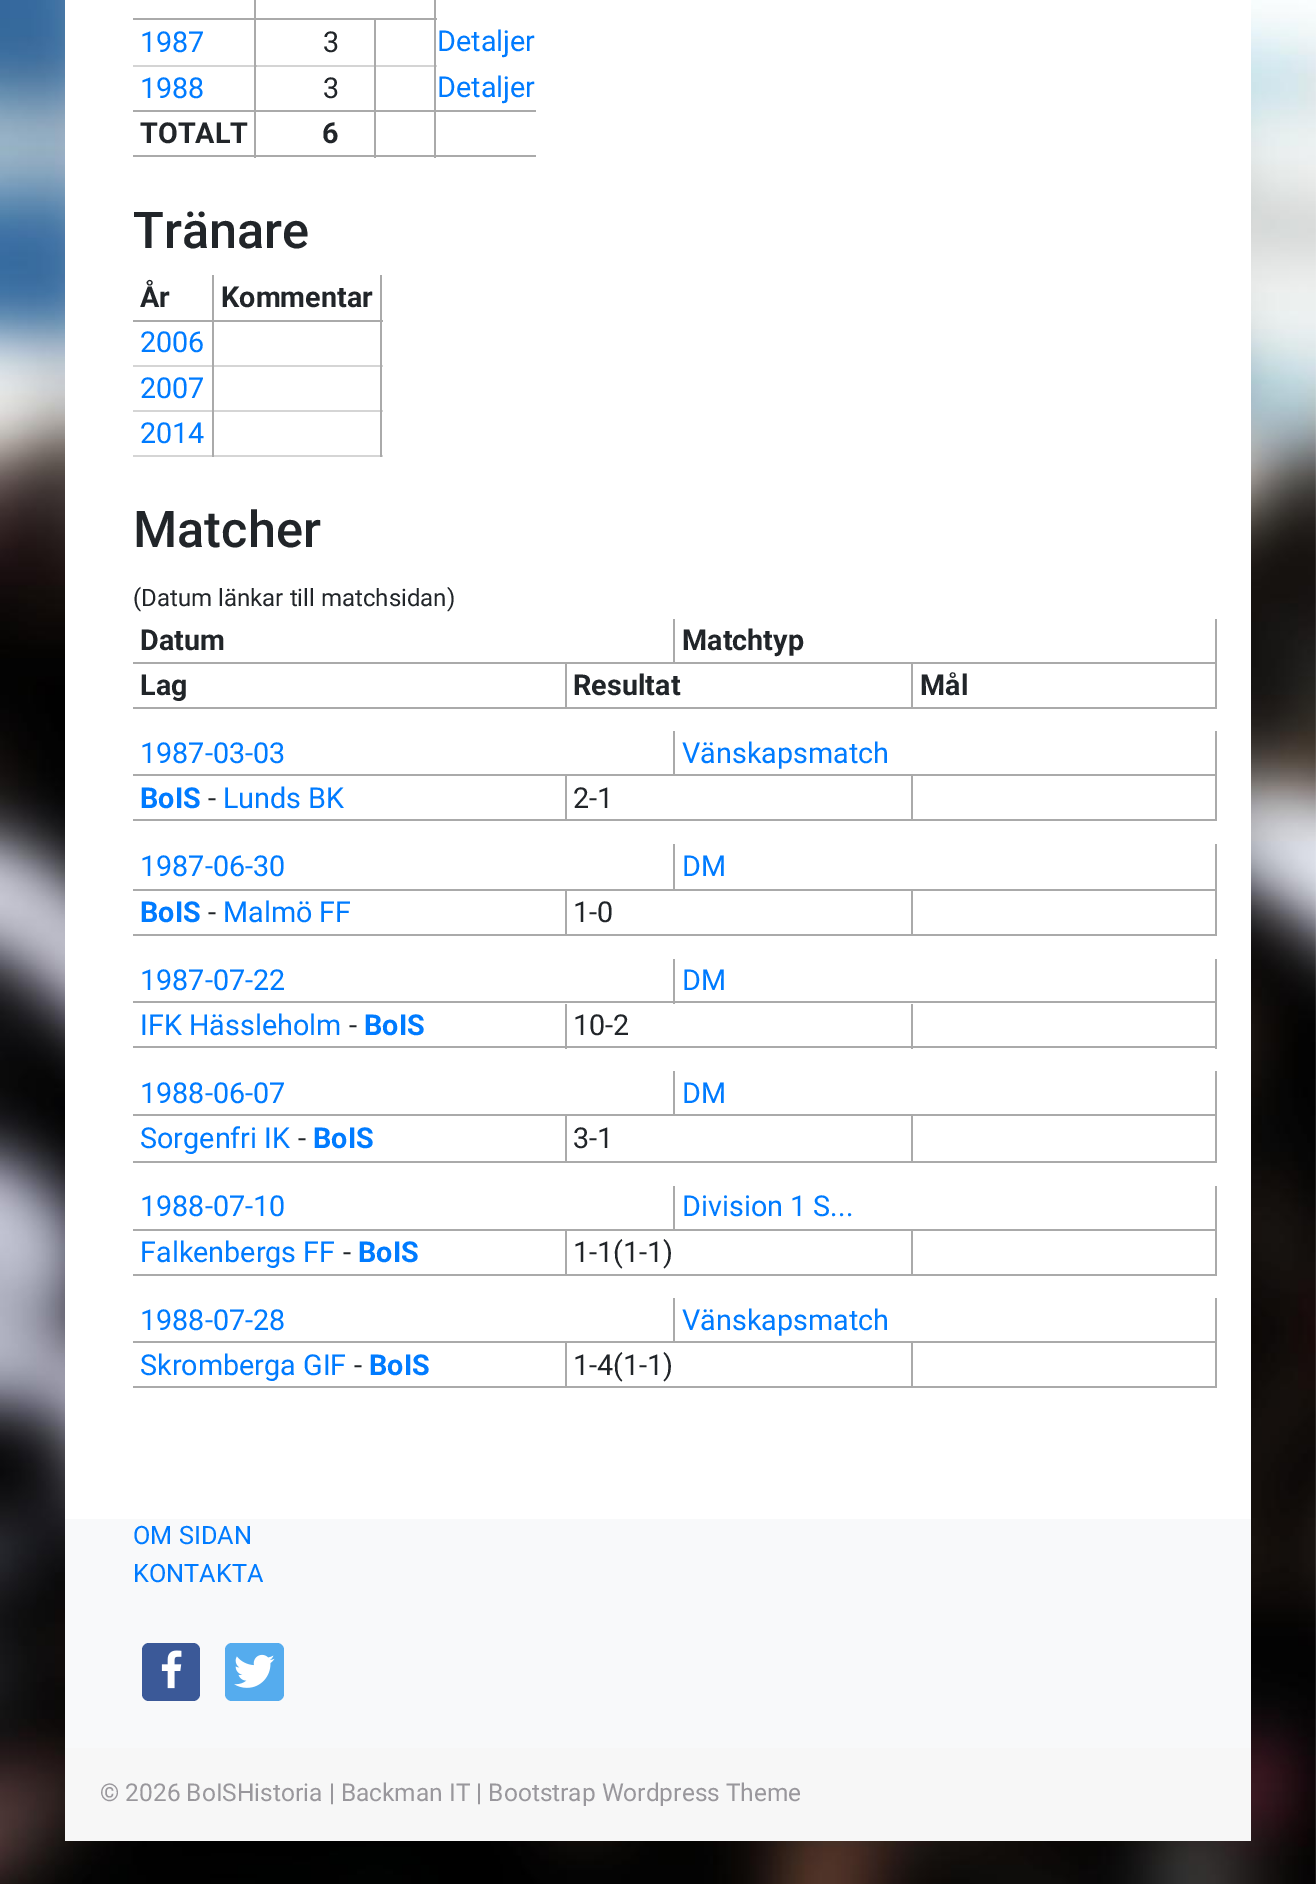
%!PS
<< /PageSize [1316 1884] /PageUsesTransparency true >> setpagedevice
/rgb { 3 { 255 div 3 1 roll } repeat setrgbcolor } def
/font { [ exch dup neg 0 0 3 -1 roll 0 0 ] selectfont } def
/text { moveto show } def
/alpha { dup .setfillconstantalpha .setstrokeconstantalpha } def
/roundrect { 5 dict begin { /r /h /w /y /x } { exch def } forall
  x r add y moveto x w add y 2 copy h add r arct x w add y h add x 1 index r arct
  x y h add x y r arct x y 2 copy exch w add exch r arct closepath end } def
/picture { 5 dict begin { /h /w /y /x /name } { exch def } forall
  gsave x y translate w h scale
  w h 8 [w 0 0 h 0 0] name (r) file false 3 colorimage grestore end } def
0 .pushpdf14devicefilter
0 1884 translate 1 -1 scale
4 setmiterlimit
255 255 255 rgb
0 0 1316 1884 rectfill
(img_01.rgb) 0 0 1316 1884 picture
65 0 1186 1519 rectfill
170 170 170 rgb
133 110 403 2 rectfill
133 155 403 2 rectfill
374 65 2 93 rectfill
434 0 2 158 rectfill
0.5 alpha
374 65 63 2 rectfill
1 alpha
374 18 2 50 rectfill
254 65 2 93 rectfill
0.5 alpha
254 65 122 2 rectfill
1 alpha
254 18 2 50 rectfill
254 18 183 2 rectfill
254 0 2 20 rectfill
133 18 124 2 rectfill
0.5 alpha
133 65 124 2 rectfill
1 alpha
133 320 250 2 rectfill
213 213 213 rgb
133 365 250 2 rectfill
133 410 250 2 rectfill
133 455 250 2 rectfill
170 170 170 rgb
212 275 2 182 rectfill
380 275 2 182 rectfill
673 619 2 45 rectfill
133 662 542 2 rectfill
1215 619 2 90 rectfill
675 662 542 2 rectfill
565 664 2 45 rectfill
133 707 434 2 rectfill
911 664 2 45 rectfill
567 707 650 2 rectfill
673 731 2 45 rectfill
133 774 542 2 rectfill
1215 731 2 90 rectfill
675 774 542 2 rectfill
565 776 2 45 rectfill
133 819 434 2 rectfill
911 776 2 45 rectfill
567 819 650 2 rectfill
673 844 2 47 rectfill
133 889 542 2 rectfill
1215 844 2 92 rectfill
675 889 542 2 rectfill
565 891 2 45 rectfill
133 934 434 2 rectfill
911 891 2 45 rectfill
567 934 650 2 rectfill
673 959 2 45 rectfill
133 1001 542 2 rectfill
1215 959 2 90 rectfill
675 1001 542 2 rectfill
565 1004 2 45 rectfill
133 1046 434 2 rectfill
911 1004 2 45 rectfill
567 1046 650 2 rectfill
673 1071 2 45 rectfill
133 1114 542 2 rectfill
1215 1071 2 92 rectfill
675 1114 542 2 rectfill
565 1116 2 47 rectfill
133 1161 434 2 rectfill
911 1116 2 47 rectfill
567 1161 650 2 rectfill
673 1186 2 45 rectfill
133 1229 542 2 rectfill
1215 1186 2 90 rectfill
675 1229 542 2 rectfill
565 1231 2 45 rectfill
133 1274 434 2 rectfill
911 1231 2 45 rectfill
567 1274 650 2 rectfill
673 1298 2 45 rectfill
133 1341 542 2 rectfill
1215 1298 2 90 rectfill
675 1341 542 2 rectfill
565 1343 2 45 rectfill
133 1386 434 2 rectfill
911 1343 2 45 rectfill
567 1386 650 2 rectfill
248 249 250 rgb
65 1519 1186 229 rectfill
59 89 152 rgb
142 1643 58 58 7 roundrect fill
(img_02.rgb) 161 1650 21 39 picture
85 172 238 rgb
225 1643 59 58 7 roundrect fill
(img_03.rgb) 234 1654 41 34 picture
247 247 247 rgb
65 1748 1186 93 rectfill
/Roboto-Regular 28.75 font
0 123 255 rgb
(1987) 140 52 text
33 37 41 rgb
(3) 323 52 text
0 123 255 rgb
(Detaljer) 437 51 text
(1988) 140 98 text
33 37 41 rgb
(3) 323 98 text
0 123 255 rgb
(Detaljer) 437 97 text
/Roboto-Bold 28.75 font
33 37 41 rgb
(TOTALT) 140 143 text
(6) 322 143 text
/Roboto-Medium 50.5 font
(Tränare) 133 248 text
/Roboto-Bold 28.75 font
(År) 140 307 text
(Kommentar) 221 307 text
/Roboto-Regular 28.75 font
0 123 255 rgb
(2006) 140 352 text
(2007) 140 398 text
(2014) 140 443 text
/Roboto-Medium 50.5 font
33 37 41 rgb
(Matcher) 133 547 text
/Roboto-Regular 24 font
(\(Datum länkar till matchsidan\)) 133 606 text
/Roboto-Bold 28.75 font
(Datum) 140 650 text
(Matchtyp) 682 650 text
(Lag) 140 695 text
(Resultat) 573 695 text
(Mål) 920 695 text
/Roboto-Regular 28.75 font
0 123 255 rgb
(1987-03-03) 140 763 text
(Vänskapsmatch) 682 763 text
/Roboto-Bold 28.75 font
(BoIS) 140 808 text
/Roboto-Regular 28.75 font
33 37 41 rgb
(-) 208 808 text
0 123 255 rgb
(Lunds BK) 223 808 text
33 37 41 rgb
(2-1) 573 808 text
0 123 255 rgb
(1987-06-30) 140 876 text
(DM) 682 876 text
/Roboto-Bold 28.75 font
(BoIS) 140 922 text
/Roboto-Regular 28.75 font
33 37 41 rgb
(-) 208 922 text
0 123 255 rgb
(Malmö FF) 223 922 text
33 37 41 rgb
(1-0) 573 922 text
0 123 255 rgb
(1987-07-22) 140 990 text
(DM) 682 990 text
(IFK Hässleholm) 140 1035 text
33 37 41 rgb
(-) 349 1035 text
/Roboto-Bold 28.75 font
0 123 255 rgb
(BoIS) 364 1035 text
/Roboto-Regular 28.75 font
33 37 41 rgb
(10-2) 573 1035 text
0 123 255 rgb
(1988-06-07) 140 1103 text
(DM) 682 1103 text
(Sorgenfri IK) 140 1148 text
33 37 41 rgb
(-) 298 1148 text
/Roboto-Bold 28.75 font
0 123 255 rgb
(BoIS) 313 1148 text
/Roboto-Regular 28.75 font
33 37 41 rgb
(3-1) 573 1148 text
0 123 255 rgb
(1988-07-10) 140 1216 text
(Division 1 S...) 682 1216 text
(Falkenbergs FF) 140 1262 text
33 37 41 rgb
(-) 343 1262 text
/Roboto-Bold 28.75 font
0 123 255 rgb
(BoIS) 358 1262 text
/Roboto-Regular 28.75 font
33 37 41 rgb
(1-1\(1-1\)) 573 1262 text
0 123 255 rgb
(1988-07-28) 140 1330 text
(Vänskapsmatch) 682 1330 text
(Skromberga GIF) 140 1375 text
33 37 41 rgb
(-) 354 1375 text
/Roboto-Bold 28.75 font
0 123 255 rgb
(BoIS) 369 1375 text
/Roboto-Regular 28.75 font
33 37 41 rgb
(1-4\(1-1\)) 573 1375 text
/Roboto-Regular 25.25 font
0 123 255 rgb
(OM SIDAN) 133 1544 text
(KONTAKTA) 133 1582 text
/Roboto-Regular 24.5 font
153 151 156 rgb
(© 2026 BoISHistoria | Backman IT | Bootstrap Wordpress Theme) 100 1801 text
.poppdf14devicefilter showpage
